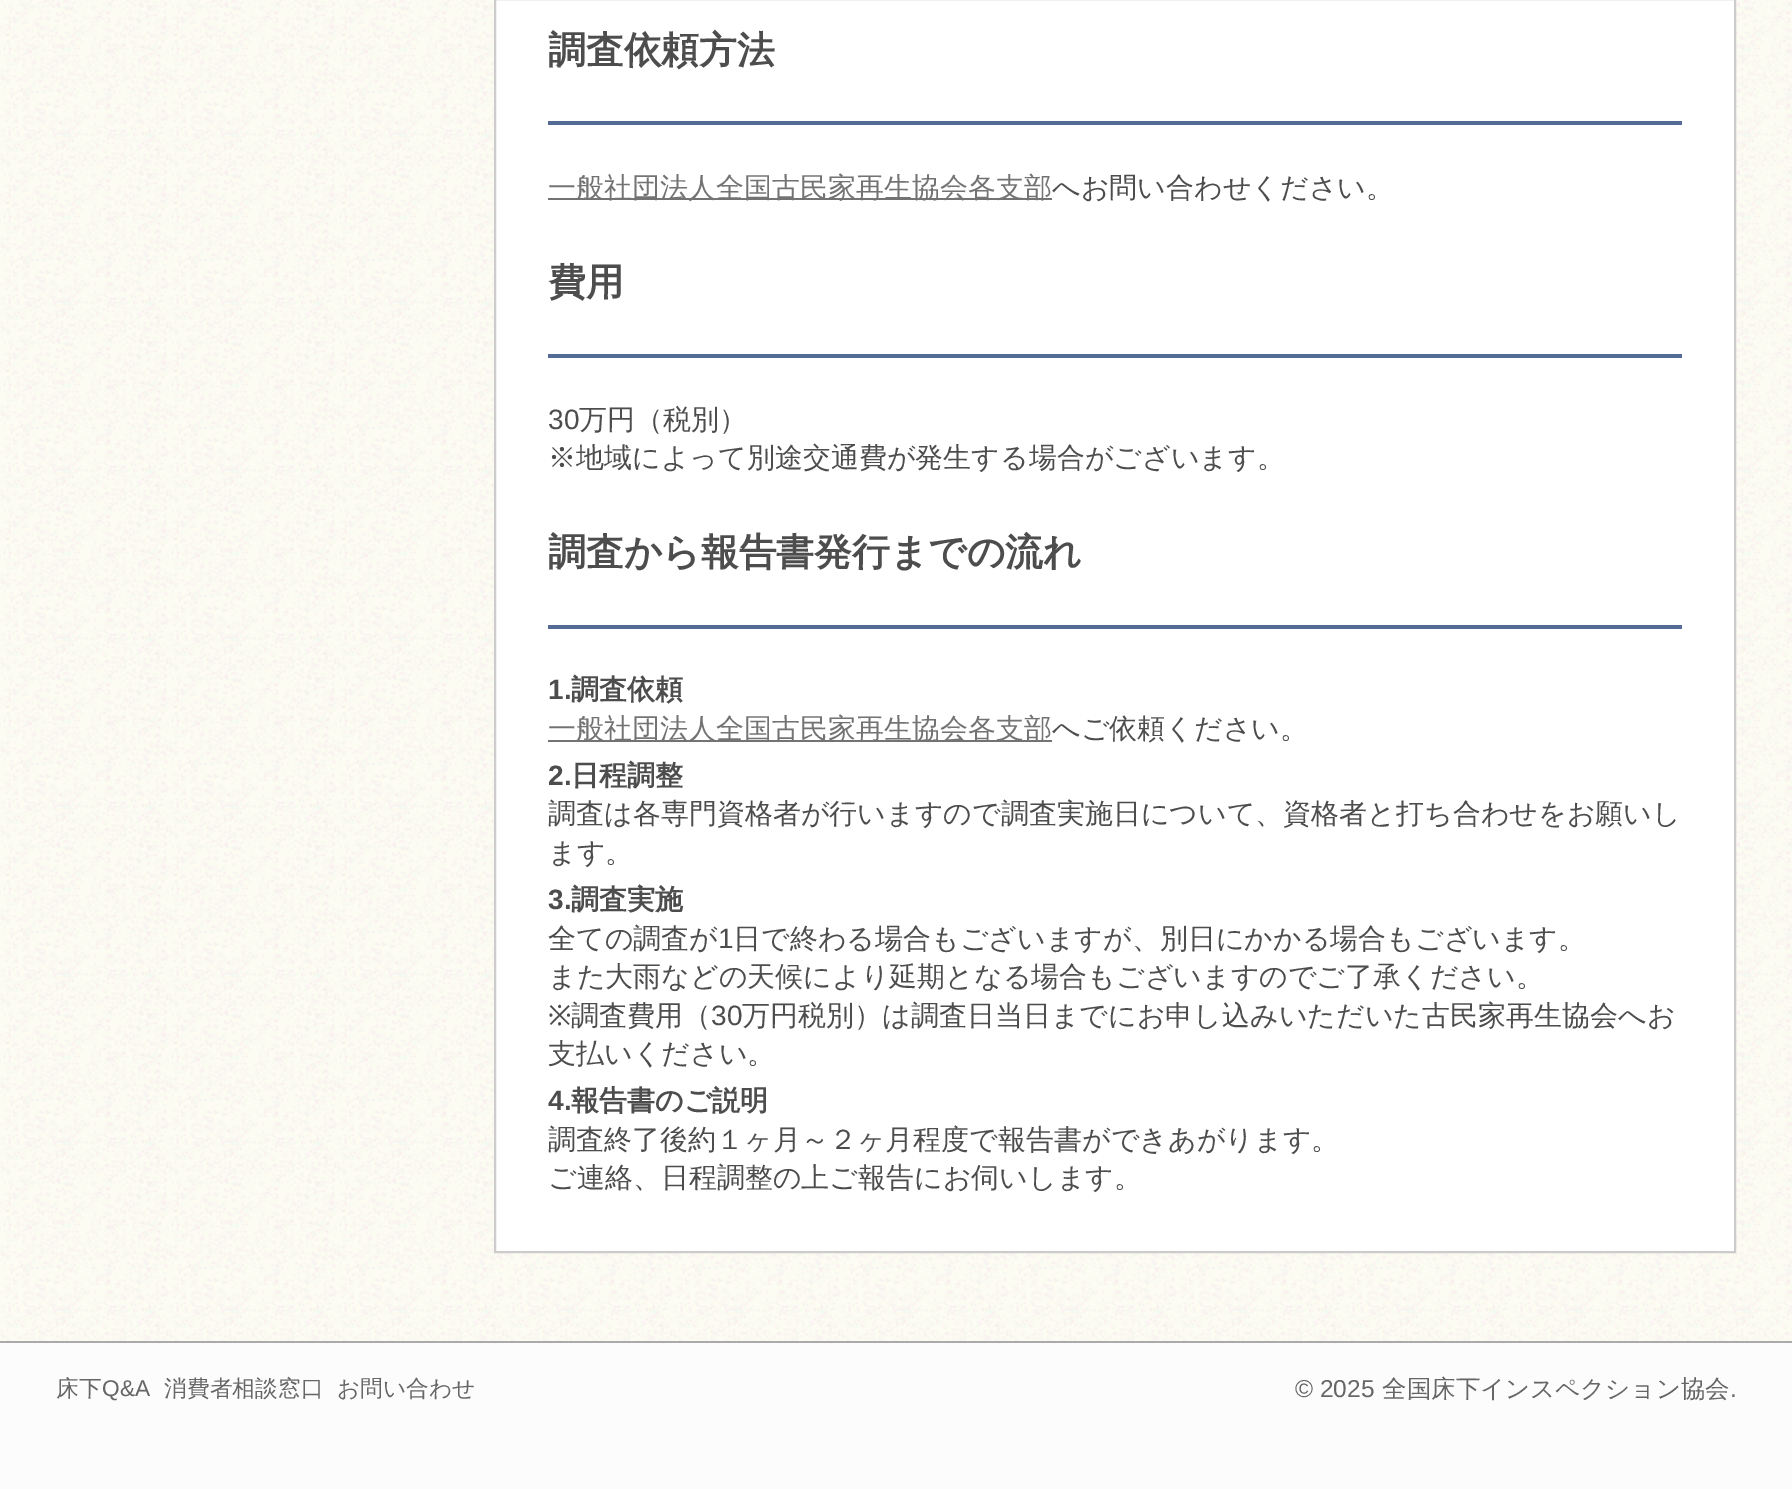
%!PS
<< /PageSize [1792 1489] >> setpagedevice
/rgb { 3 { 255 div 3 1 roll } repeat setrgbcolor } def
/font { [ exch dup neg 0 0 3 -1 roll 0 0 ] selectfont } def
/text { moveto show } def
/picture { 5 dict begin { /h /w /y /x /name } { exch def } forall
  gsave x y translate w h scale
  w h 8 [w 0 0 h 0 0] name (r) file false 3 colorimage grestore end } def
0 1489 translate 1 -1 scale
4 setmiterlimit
255 255 255 rgb
0 0 1792 1489 rectfill
(img_01.rgb) 0 0 1792 1341 picture
495 -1 moveto 1240 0 rlineto 0 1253 rlineto -1240 0 rlineto closepath gsave fill grestore
204 204 204 rgb
2 setlinewidth
stroke
84 107 150 rgb
548 121 1134 4 rectfill
115 115 115 rgb
548 198 504 2 rectfill
84 107 150 rgb
548 354 1134 4 rectfill
548 625 1134 4 rectfill
115 115 115 rgb
548 740 504 2 rectfill
252 252 252 rgb
0 1343 1792 146 rectfill
170 170 170 rgb
0 1341 1792 2 rectfill
/WenQuanYiZenHei-Bold 37.75 font
77 77 77 rgb
(調査依頼方法) 548 63 text
/WenQuanYiZenHei-Medium 28 font
115 115 115 rgb
(一般社団法人全国古民家再生協会各支部) 548 197 text
77 77 77 rgb
(へお問い合わせください。) 1052 197 text
/WenQuanYiZenHei-Bold 37.75 font
(費用) 548 295 text
/LiberationSans-Regular 28 font
(30) 548 429 text
/WenQuanYiZenHei-Medium 28 font
(万円（税別）) 579 429 text
(※地域によって別途交通費が発生する場合がございます。) 548 467 text
/WenQuanYiZenHei-Bold 37.75 font
(調査から報告書発行までの流れ) 548 565 text
/LiberationSans-Bold 28 font
(1.) 548 699 text
/WenQuanYiZenHei-Bold 28 font
(調査依頼) 571 699 text
/WenQuanYiZenHei-Medium 28 font
115 115 115 rgb
(一般社団法人全国古民家再生協会各支部) 548 738 text
77 77 77 rgb
(へご依頼ください。) 1052 738 text
/LiberationSans-Bold 28 font
(2.) 548 785 text
/WenQuanYiZenHei-Bold 28 font
(日程調整) 571 785 text
/WenQuanYiZenHei-Medium 28 font
(調査は各専門資格者が行いますので調査実施日について、資格者と打ち合わせをお願いし) 548 823 text
(ます。) 548 862 text
/LiberationSans-Bold 28 font
(3.) 548 909 text
/WenQuanYiZenHei-Bold 28 font
(調査実施) 571 909 text
/WenQuanYiZenHei-Medium 28 font
(全ての調査が) 548 948 text
/LiberationSans-Regular 28 font
(1) 718 948 text
/WenQuanYiZenHei-Medium 28 font
(日で終わる場合もございますが、別日にかかる場合もございます。) 733 948 text
(また大雨などの天候により延期となる場合もございますのでご了承ください。) 548 986 text
/NotoSans-Regular 28 font
(※) 548 1025 text
/WenQuanYiZenHei-Medium 28 font
(調査費用（) 571 1025 text
/LiberationSans-Regular 28 font
(30) 711 1025 text
/WenQuanYiZenHei-Medium 28 font
(万円税別）は調査日当日までにお申し込みいただいた古民家再生協会へお) 742 1025 text
(支払いください。) 548 1063 text
/LiberationSans-Bold 28 font
(4.) 548 1110 text
/WenQuanYiZenHei-Bold 28 font
(報告書のご説明) 571 1110 text
/WenQuanYiZenHei-Medium 28 font
(調査終了後約１ヶ月～２ヶ月程度で報告書ができあがります。) 548 1149 text
(ご連絡、日程調整の上ご報告にお伺いします。) 548 1187 text
/WenQuanYiZenHei-Medium 22.75 font
102 102 102 rgb
(床下) 56 1396 text
/LiberationSans-Regular 22.75 font
(Q&A) 102 1396 text
/WenQuanYiZenHei-Medium 22.75 font
(消費者相談窓口) 164 1396 text
(お問い合わせ) 337 1396 text
/LiberationSans-Regular 24.5 font
(© 2025) 1295 1397 text
/WenQuanYiZenHei-Medium 24.5 font
(全国床下インスペクション協会) 1382 1397 text
/LiberationSans-Regular 24.5 font
(.) 1730 1397 text
showpage
